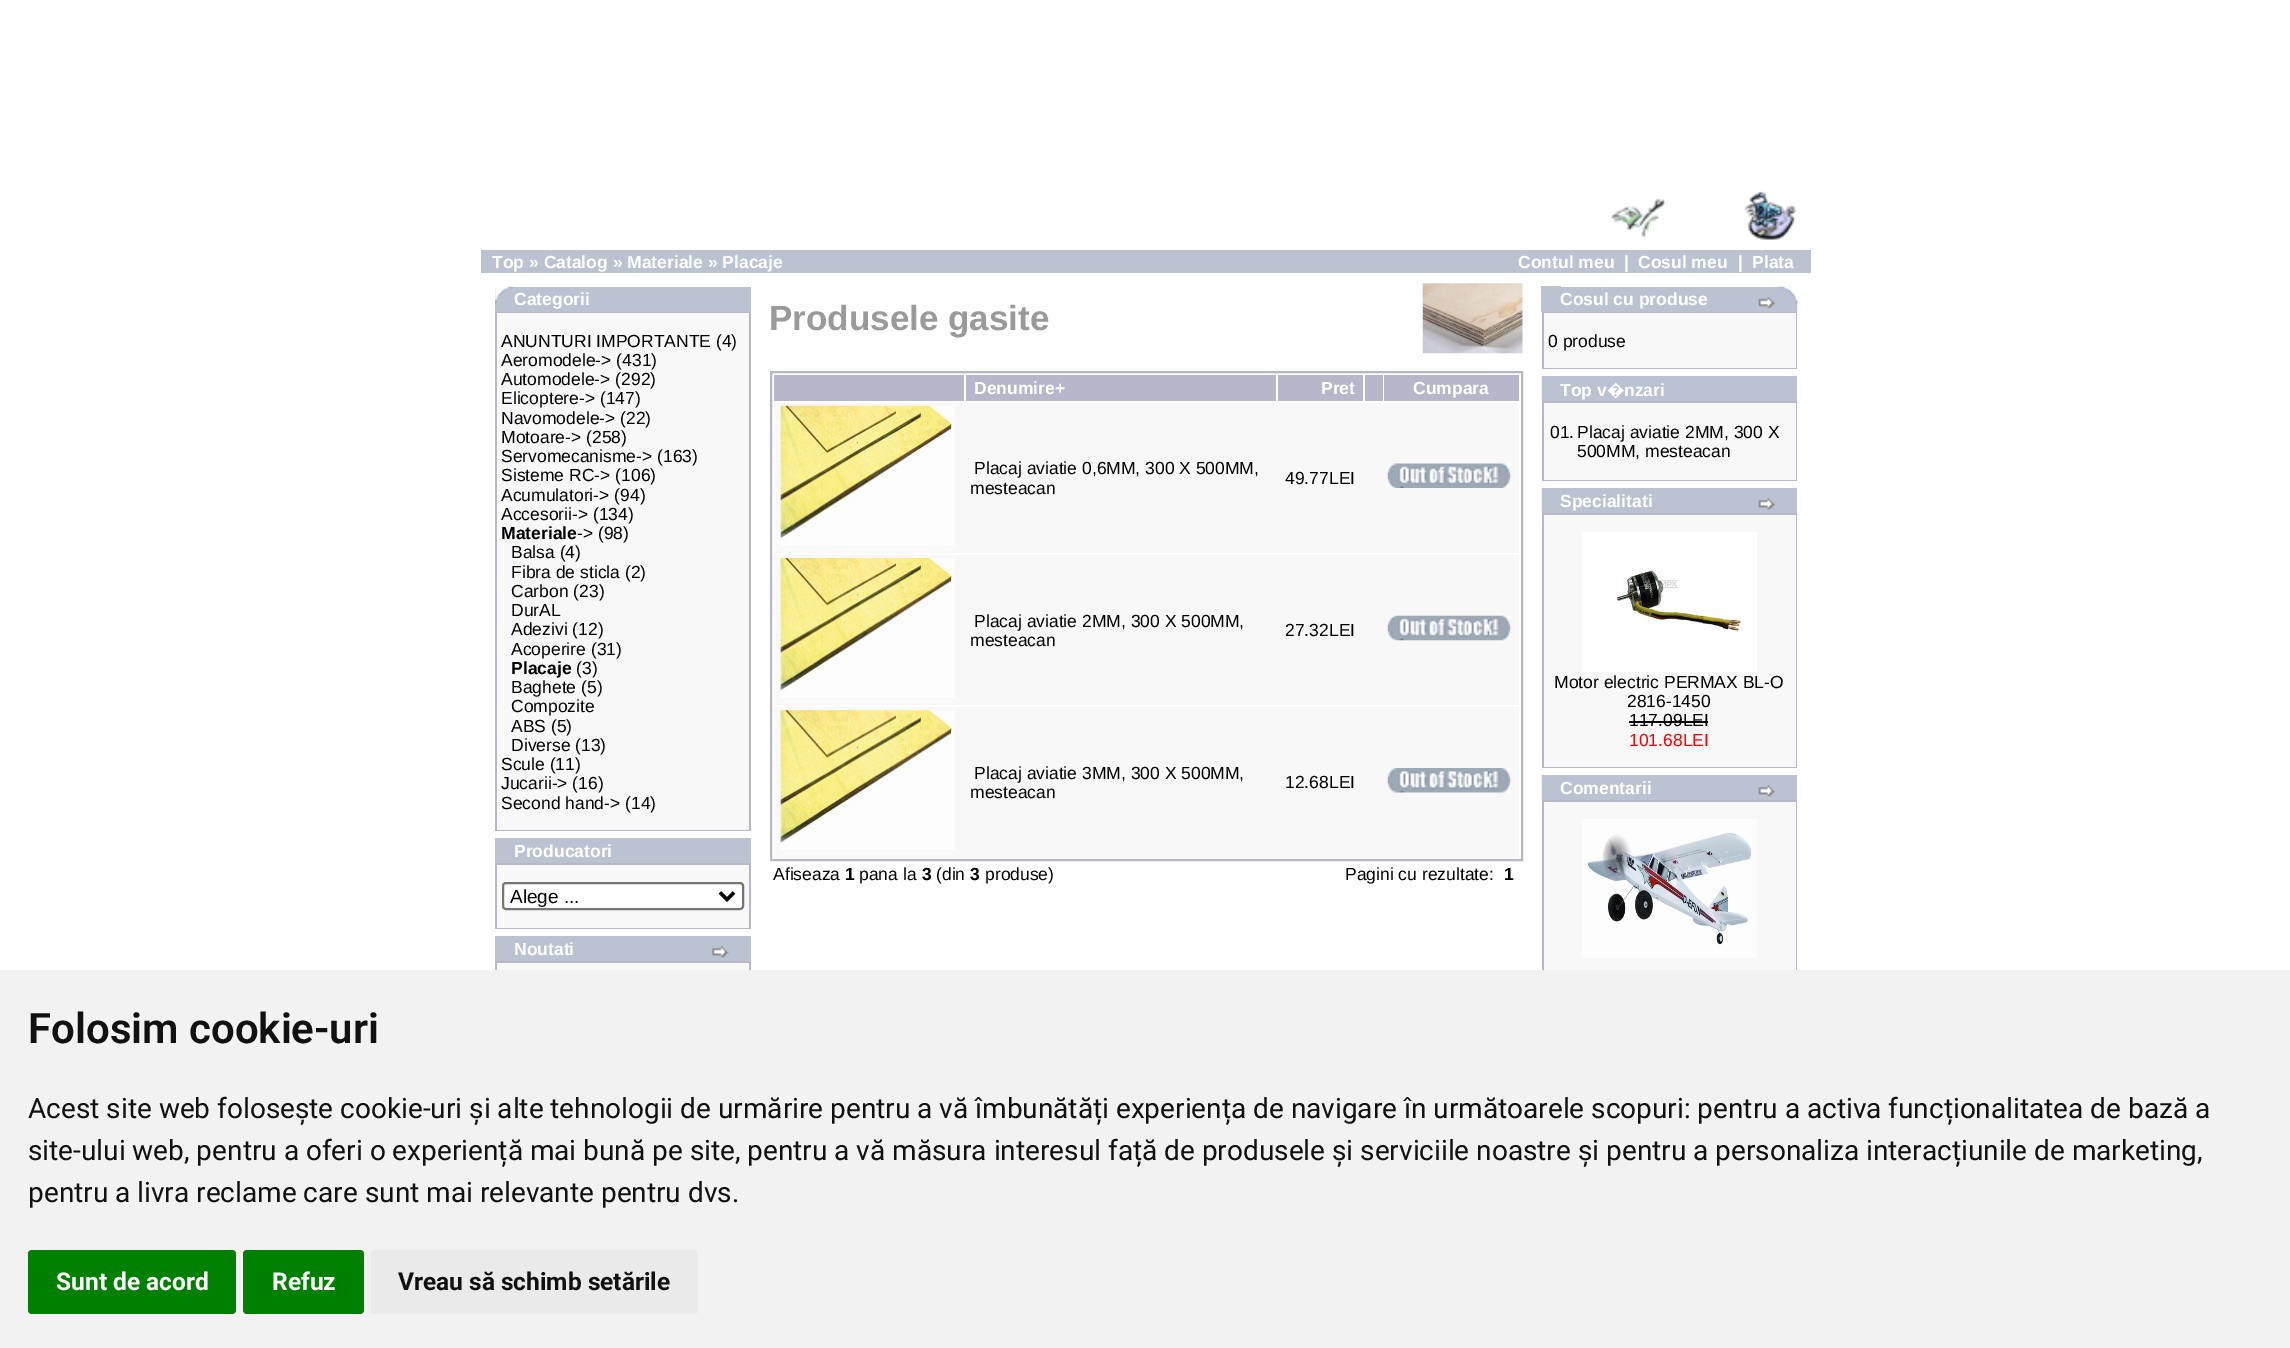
%!PS
<< /PageSize [2290 1348] >> setpagedevice
/rgb { 3 { 255 div 3 1 roll } repeat setrgbcolor } def
/font { [ exch dup neg 0 0 3 -1 roll 0 0 ] selectfont } def
/text { moveto show } def
/roundrect { 5 dict begin { /r /h /w /y /x } { exch def } forall
  x r add y moveto x w add y 2 copy h add r arct x w add y h add x 1 index r arct
  x y h add x y r arct x y 2 copy exch w add exch r arct closepath end } def
/picture { 5 dict begin { /h /w /y /x /name } { exch def } forall
  gsave x y translate w h scale
  w h 8 [w 0 0 h 0 0] name (r) file false 3 colorimage grestore end } def
0 1348 translate 1 -1 scale
4 setmiterlimit
255 255 255 rgb
0 0 2290 1348 rectfill
(img_01.rgb) 1611 198 54 40 picture
(img_02.rgb) 1744 191 52 49 picture
187 195 211 rgb
481 250 1330 23 rectfill
495 287 256 25 rectfill
(img_03.rgb) 495 286 20 18 picture
182 183 203 rgb
495 312 256 519 rectfill
248 248 249 rgb
497 313 252 517 rectfill
187 195 211 rgb
495 838 256 25 rectfill
182 183 203 rgb
495 863 256 66 rectfill
248 248 249 rgb
497 865 252 63 rectfill
255 255 255 rgb
503 883 240 26 3 roundrect gsave fill grestore
118 118 118 rgb
2 setlinewidth
stroke
0 0 0 rgb
3.5 setlinewidth
720 892.5 moveto 7 7 rlineto 7 -7 rlineto stroke
187 195 211 rgb
495 936 256 25 rectfill
(img_04.rgb) 711 946 18 12 picture
182 183 203 rgb
495 961 256 9 rectfill
248 248 249 rgb
497 963 252 7 rectfill
(img_05.rgb) 1422 283 101 71 picture
182 183 203 rgb
2 setlinewidth
771 372 751 488 rectstroke
774 375 190 26 rectfill
966 375 310 26 rectfill
1278 375 85 26 rectfill
1365 375 18 26 rectfill
1384 375 135 26 rectfill
248 248 249 rgb
774 403 745 150 rectfill
(img_06.rgb) 780 405 175 141 picture
(img_07.rgb) 1387 463 124 25 picture
774 555 745 150 rectfill
(img_08.rgb) 780 558 175 140 picture
(img_09.rgb) 1387 615 124 26 picture
774 707 745 151 rectfill
(img_10.rgb) 780 710 175 140 picture
(img_11.rgb) 1387 768 124 25 picture
187 195 211 rgb
1541 286 20 26 rectfill
1561 287 236 25 rectfill
(img_12.rgb) 1758 296 17 13 picture
(img_13.rgb) 1778 286 20 26 picture
182 183 203 rgb
1542 312 255 57 rectfill
248 248 249 rgb
1544 313 252 55 rectfill
187 195 211 rgb
1542 376 255 25 rectfill
(img_14.rgb) 1541 376 1 25 picture
182 183 203 rgb
1542 401 255 80 rectfill
248 248 249 rgb
1544 403 252 77 rectfill
187 195 211 rgb
1542 488 255 25 rectfill
(img_14.rgb) 1541 488 1 25 picture
(img_15.rgb) 1758 498 17 12 picture
182 183 203 rgb
1542 513 255 255 rectfill
248 248 249 rgb
1544 515 252 252 rectfill
(img_16.rgb) 1582 532 175 140 picture
0 0 0 rgb
1629 721 79 2 rectfill
187 195 211 rgb
1542 775 255 25 rectfill
(img_14.rgb) 1541 775 1 25 picture
(img_15.rgb) 1758 785 17 12 picture
182 183 203 rgb
1542 800 255 170 rectfill
248 248 249 rgb
1544 802 252 168 rectfill
(img_17.rgb) 1582 819 175 139 picture
242 242 242 rgb
0 970 2290 378 rectfill
0 128 0 rgb
28 1250 208 64 4 roundrect fill
243 1250 121 64 4 roundrect fill
234 234 234 rgb
371 1250 327 64 4 roundrect fill
/LiberationSans-Bold 17.5 font
255 255 255 rgb
(Top » Catalog » Materiale » Placaje) 492 268 text
(Contul meu) 1518 268 text
(|) 1624 268 text
(Cosul meu) 1638 268 text
(|) 1738 268 text
(Plata) 1752 268 text
(Categorii) 514 305 text
/LiberationSans-Regular 17.5 font
0 0 0 rgb
(ANUNTURI IMPORTANTE \(4\)) 501 347 text
(Aeromodele-> \(431\)) 501 366 text
(Automodele-> \(292\)) 501 385 text
(Elicoptere-> \(147\)) 501 404 text
(Navomodele-> \(22\)) 501 424 text
(Motoare-> \(258\)) 501 443 text
(Servomecanisme-> \(163\)) 501 462 text
(Sisteme RC-> \(106\)) 501 481 text
(Acumulatori-> \(94\)) 501 501 text
(Accesorii-> \(134\)) 501 520 text
/LiberationSans-Bold 17.5 font
(Materiale) 501 539 text
/LiberationSans-Regular 17.5 font
(-> \(98\)) 577 539 text
(Balsa \(4\)) 511 558 text
(Fibra de sticla \(2\)) 511 578 text
(Carbon \(23\)) 511 597 text
(DurAL) 511 616 text
(Adezivi \(12\)) 511 635 text
(Acoperire \(31\)) 511 655 text
/LiberationSans-Bold 17.5 font
(Placaje) 511 674 text
/LiberationSans-Regular 17.5 font
(\(3\)) 576 674 text
(Baghete \(5\)) 511 693 text
(Compozite) 511 712 text
(ABS \(5\)) 511 732 text
(Diverse \(13\)) 511 751 text
(Scule \(11\)) 501 770 text
(Jucarii-> \(16\)) 501 789 text
(Second hand-> \(14\)) 501 809 text
/LiberationSans-Bold 17.5 font
255 255 255 rgb
(Producatori) 514 857 text
/LiberationSans-Regular 19 font
0 0 0 rgb
(Alege ...) 510 903 text
/LiberationSans-Bold 17.5 font
255 255 255 rgb
(Noutati) 514 955 text
/LiberationSans-Bold 35 font
154 154 154 rgb
(Produsele gasite) 769 330 text
/LiberationSans-Bold 17.5 font
255 255 255 rgb
(Denumire+) 974 394 text
(Pret) 1321 394 text
(Cumpara) 1413 394 text
/LiberationSans-Regular 17.5 font
0 0 0 rgb
(Placaj aviatie 0,6MM, 300 X 500MM,) 974 474 text
(mesteacan) 970 494 text
(49.77LEI) 1285 484 text
(Placaj aviatie 2MM, 300 X 500MM,) 974 627 text
(mesteacan) 970 646 text
(27.32LEI) 1285 636 text
(Placaj aviatie 3MM, 300 X 500MM,) 974 779 text
(mesteacan) 970 798 text
(12.68LEI) 1285 788 text
(Afiseaza) 773 880 text
/LiberationSans-Bold 17.5 font
(1) 845 880 text
/LiberationSans-Regular 17.5 font
(pana la) 859 880 text
/LiberationSans-Bold 17.5 font
(3) 922 880 text
/LiberationSans-Regular 17.5 font
(\(din) 936 880 text
/LiberationSans-Bold 17.5 font
(3) 970 880 text
/LiberationSans-Regular 17.5 font
(produse\)) 985 880 text
(Pagini cu rezultate:) 1345 880 text
/LiberationSans-Bold 17.5 font
(1) 1504 880 text
255 255 255 rgb
(Cosul cu produse) 1560 305 text
/LiberationSans-Regular 17.5 font
0 0 0 rgb
(0 produse) 1548 347 text
/LiberationSans-Bold 17.5 font
255 255 255 rgb
(Top v) 1560 396 text
/NotoSans-Bold 17.5 font
(�) 1607 396 text
/LiberationSans-Bold 17.5 font
(nzari) 1624 396 text
/LiberationSans-Regular 17.5 font
0 0 0 rgb
(01.) 1550 438 text
(Placaj aviatie 2MM, 300 X) 1577 438 text
(500MM, mesteacan) 1577 457 text
/LiberationSans-Bold 17.5 font
255 255 255 rgb
(Specialitati) 1560 507 text
/LiberationSans-Regular 17.5 font
0 0 0 rgb
(Motor electric PERMAX BL-O) 1554 688 text
(2816-1450) 1627 707 text
(117.09LEI) 1629 726 text
255 0 0 rgb
(101.68LEI) 1629 746 text
/LiberationSans-Bold 17.5 font
255 255 255 rgb
(Comentarii) 1560 794 text
/Roboto-SemiBold 42 font
17 17 17 rgb
(Folosim cookie-uri) 28 1043 text
/Roboto-Regular 28 font
(Acest site web folosește cookie-uri și alte tehnologii de urmărire pentru a vă îmbunătăți experiența de navigare în următoarele scopuri: pentru a activa funcționalitatea de bază a) 28 1118 text
(site-ului web, pentru a oferi o experiență mai bună pe site, pentru a vă măsura interesul față de produsele și serviciile noastre și pentru a personaliza interacțiunile de marketing,) 28 1160 text
(pentru a livra reclame care sunt mai relevante pentru dvs.) 28 1202 text
/Roboto-Bold 24.5 font
255 255 255 rgb
(Sunt de acord) 56 1290 text
(Refuz) 272 1290 text
17 17 17 rgb
(Vreau să schimb setările) 398 1290 text
showpage
